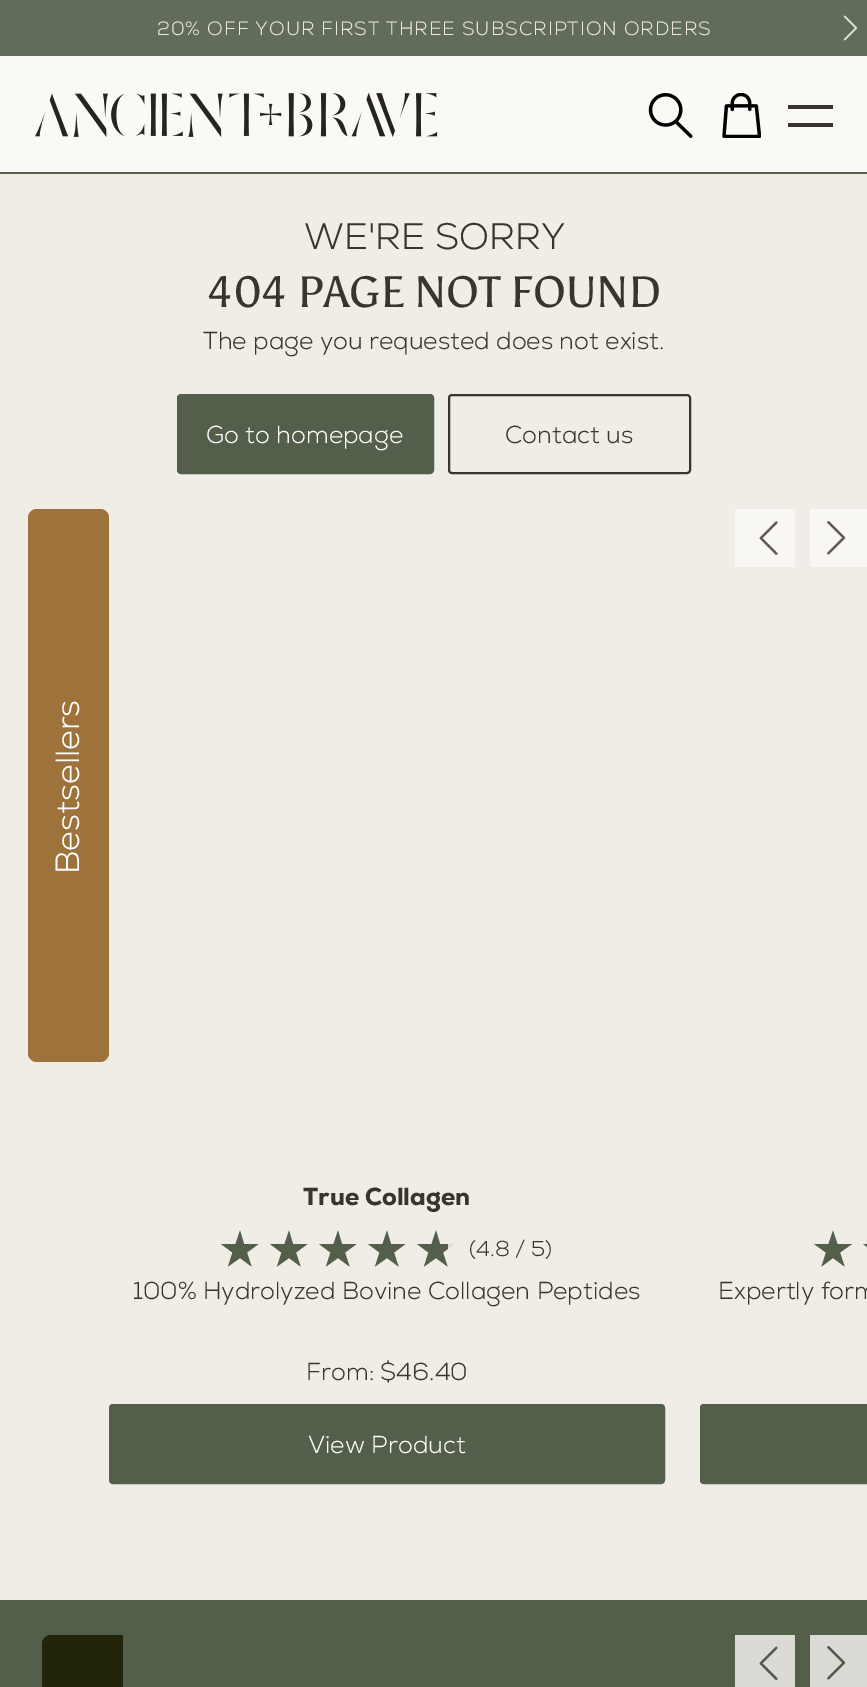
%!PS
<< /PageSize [867 1687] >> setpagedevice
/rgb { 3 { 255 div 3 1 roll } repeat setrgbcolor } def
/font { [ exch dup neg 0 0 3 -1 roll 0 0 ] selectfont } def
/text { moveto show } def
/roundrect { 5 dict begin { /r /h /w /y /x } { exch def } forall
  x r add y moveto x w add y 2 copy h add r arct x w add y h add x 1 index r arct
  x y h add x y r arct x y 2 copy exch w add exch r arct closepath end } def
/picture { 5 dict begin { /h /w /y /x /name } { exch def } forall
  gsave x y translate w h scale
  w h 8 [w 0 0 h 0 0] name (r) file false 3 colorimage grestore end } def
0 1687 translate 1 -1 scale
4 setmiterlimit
239 237 230 rgb
0 0 867 1687 rectfill
98 108 90 rgb
0 0 867 56 rectfill
(img_01.rgb) 843 15 15 26 picture
249 249 246 rgb
0 56 867 116 rectfill
83 95 74 rgb
0 172 867 2 rectfill
(img_02.rgb) 35 93 403 44 picture
(img_03.rgb) 648 93 45 45 picture
(img_04.rgb) 722 93 39 45 picture
59 51 45 rgb
788 105 45 4 rectfill
788 123 45 4 rectfill
83 95 74 rgb
178 395 255 78 3 roundrect gsave fill grestore
2 setlinewidth
stroke
59 51 45 rgb
449 395 241 78 3 roundrect stroke
157 114 59 rgb
28 509 81 553 9 roundrect fill
248 247 244 rgb
735 509 60 58 rectfill
(img_05.rgb) 759 521 19 34 picture
810 509 57 58 rectfill
(img_06.rgb) 827 521 19 34 picture
83 95 74 rgb
240 1230.5 moveto 4 13.5 rlineto 14.5 0 rlineto -11.5 8.5 rlineto 4.5 14 rlineto -11.5 -8.5 rlineto -12 8.5 rlineto 4.5 -14 rlineto -11.5 -8.5 rlineto 14.5 0 rlineto closepath fill
289 1230.5 moveto 4 13.5 rlineto 14.5 0 rlineto -11.5 8.5 rlineto 4.5 14 rlineto -11.5 -8.5 rlineto -12 8.5 rlineto 4.5 -14 rlineto -11.5 -8.5 rlineto 14.5 0 rlineto closepath fill
338 1230.5 moveto 4 13.5 rlineto 14.5 0 rlineto -11.5 8.5 rlineto 4.5 14 rlineto -11.5 -8.5 rlineto -12 8.5 rlineto 4.5 -14 rlineto -11.5 -8.5 rlineto 14.5 0 rlineto closepath fill
387 1230.5 moveto 4 13.5 rlineto 14.5 0 rlineto -11.5 8.5 rlineto 4.5 14 rlineto -11.5 -8.5 rlineto -12 8.5 rlineto 4.5 -14 rlineto -11.5 -8.5 rlineto 14.5 0 rlineto closepath fill
220 220 220 rgb
436 1230.5 moveto 4 13.5 rlineto 14.5 0 rlineto -11.5 8.5 rlineto 4.5 14 rlineto -11.5 -8.5 rlineto -12 8.5 rlineto 4.5 -14 rlineto -11.5 -8.5 rlineto 14.5 0 rlineto closepath fill
gsave
417 1230 31 37 rectclip
83 95 74 rgb
436 1230.5 moveto 4 13.5 rlineto 14.5 0 rlineto -11.5 8.5 rlineto 4.5 14 rlineto -11.5 -8.5 rlineto -12 8.5 rlineto 4.5 -14 rlineto -11.5 -8.5 rlineto 14.5 0 rlineto closepath fill
grestore
83 95 74 rgb
110 1405 554 78 3 roundrect gsave fill grestore
stroke
833 1230.5 moveto 4.5 13.5 rlineto 14.5 0 rlineto -12 8.5 rlineto 4.5 14 rlineto -11.5 -8.5 rlineto -11.5 8.5 rlineto 4.5 -14 rlineto -12 -8.5 rlineto 14.5 0 rlineto closepath 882 1230.5 moveto 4.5 13.5 rlineto 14.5 0 rlineto -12 8.5 rlineto 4.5 14 rlineto -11.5 -8.5 rlineto -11.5 8.5 rlineto 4.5 -14 rlineto -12 -8.5 rlineto 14.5 0 rlineto closepath fill
704 1404 moveto 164 0 rlineto 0 80 rlineto -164 0 rlineto -2 0 -4 -2 -4 -4 rcurveto 0 -72 rlineto 0 -2 2 -4 4 -4 rcurveto closepath fill
701 1405 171 78 3 roundrect stroke
0 1600 867 87 rectfill
35 37 10 rgb
51 1635 moveto 72 0 rlineto 0 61 rlineto -72 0 rlineto -5 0 -9 -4 -9 -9 rcurveto 0 -43 rlineto 0 -5 4 -9 9 -9 rcurveto closepath fill
217 219 212 rgb
735 1635 60 52 rectfill
(img_07.rgb) 759 1646 19 35 picture
810 1635 57 52 rectfill
(img_08.rgb) 827 1646 19 34 picture
/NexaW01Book-Light 19.25 font
235 233 217 rgb
157 35 moveto 0.95 0 (20% OFF YOUR FIRST THREE SUBSCRIPTION ORDERS) ashow
/NexaW01Book-Light 36.75 font
59 51 45 rgb
(WE'RE SORRY) 304 249 text
/Asul-Regular 43.75 font
(404 PAGE NOT FOUND) 208 307 text
/NexaW01Book-Light 24.5 font
(The page you requested does not exist.) 203 349 text
255 255 255 rgb
(Go to homepage) 206 443 text
59 51 45 rgb
(Contact us) 505 443 text
/NexaW01Book-Light 33.5 font
255 255 255 rgb
gsave 79 874 translate -90 rotate 0 0 moveto (Bestsellers) show grestore
/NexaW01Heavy-Black 24.5 font
59 51 45 rgb
(True Collagen) 303 1205 text
/NexaW01Book-Light 21.5 font
(\(4.8 / 5\)) 469 1256 text
/NexaW01Book-Light 24.5 font
(100% Hydrolyzed Bovine Collagen Peptides) 133 1299 text
(From: $46.40) 306 1380 text
255 255 255 rgb
(View Product) 308 1453 text
59 51 45 rgb
(Expertly form) 718 1299 text
showpage
